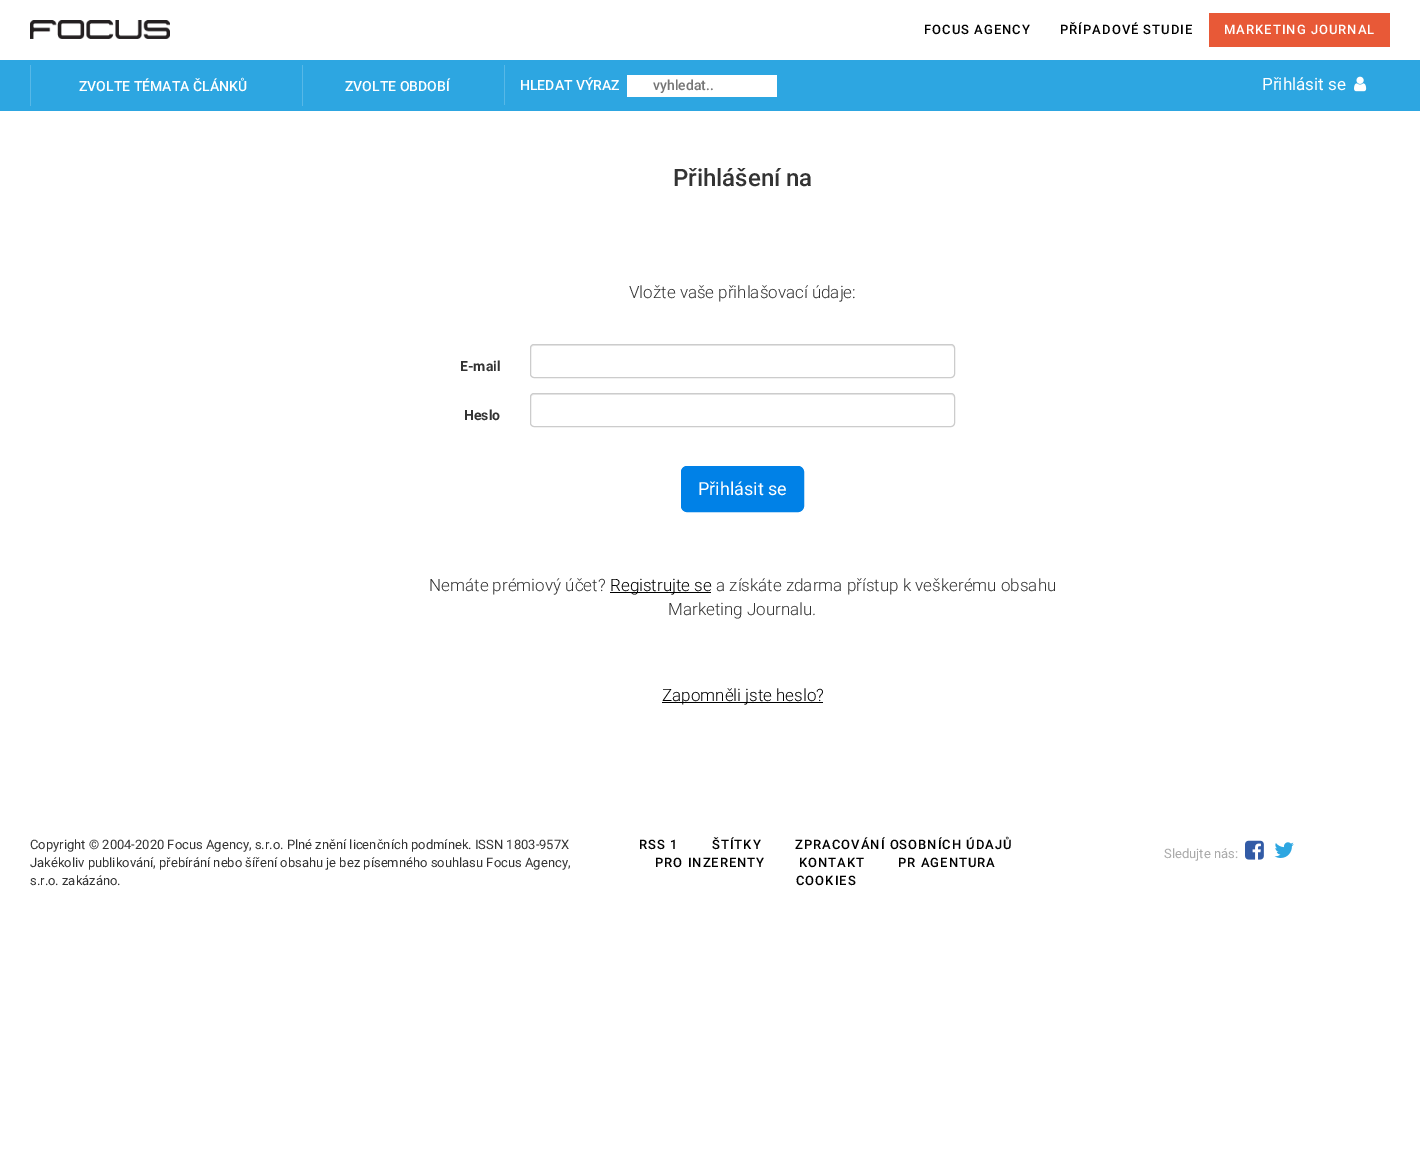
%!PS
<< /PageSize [1420 1168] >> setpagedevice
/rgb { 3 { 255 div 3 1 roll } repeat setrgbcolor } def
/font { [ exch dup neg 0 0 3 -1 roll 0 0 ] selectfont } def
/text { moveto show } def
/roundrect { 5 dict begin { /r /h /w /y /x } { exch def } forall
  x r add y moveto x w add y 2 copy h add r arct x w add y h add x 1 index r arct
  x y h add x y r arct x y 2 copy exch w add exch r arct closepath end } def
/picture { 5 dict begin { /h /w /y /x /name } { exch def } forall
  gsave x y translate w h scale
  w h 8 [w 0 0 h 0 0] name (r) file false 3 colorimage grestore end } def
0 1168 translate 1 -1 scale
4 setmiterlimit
255 255 255 rgb
0 0 1420 1168 rectfill
(img_01.rgb) 30 20 140 19 picture
232 89 55 rgb
1209 13 181 34 rectfill
45 166 225 rgb
0 60 1420 51 rectfill
87 184 231 rgb
30 65 1 41 rectfill
302 65 1 41 rectfill
504 65 1 40 rectfill
255 255 255 rgb
627 75 150 22 rectfill
(img_02.rgb) 1354 76 13 16 picture
236 236 236 rgb
534 346 moveto 417 0 rlineto 2 0 3 1 3 3 rcurveto 0 -2 -1 -4 -3 -4 rcurveto -417 0 rlineto -2 0 -3 2 -3 4 rcurveto 0 -2 1 -3 3 -3 rcurveto closepath fill
204 204 204 rgb
530.5 344.5 424 33 3.5 roundrect stroke
236 236 236 rgb
534 395 moveto 417 0 rlineto 2 0 3 1 3 3 rcurveto 0 -2 -1 -4 -3 -4 rcurveto -417 0 rlineto -2 0 -3 2 -3 4 rcurveto 0 -2 1 -3 3 -3 rcurveto closepath fill
204 204 204 rgb
530.5 393.5 424 33 3.5 roundrect stroke
0 129 231 rgb
681.5 466.5 122 45 5.5 roundrect gsave fill grestore
stroke
0 0 0 rgb
610 592 101 1 rectfill
662 702 161 1 rectfill
(img_03.rgb) 1245 840 19 20 picture
(img_04.rgb) 1274 842 20 16 picture
/Roboto-Medium 13 font
924 34 moveto 1 0 (FOCUS AGENCY) ashow
1060 34 moveto 1 0 (PŘÍPADOVÉ STUDIE) ashow
255 255 255 rgb
1224 34 moveto 1 0 (MARKETING JOURNAL) ashow
/Roboto-Medium 14 font
(ZVOLTE TÉMATA ČLÁNKŮ) 79 91 text
(ZVOLTE OBDOBÍ) 345 91 text
(HLEDAT VÝRAZ) 520 90 text
117 117 117 rgb
(vyhledat..) 653 90 text
/Roboto-Regular 17 font
255 255 255 rgb
(Přihlásit se) 1262 90 text
/Roboto-Medium 24 font
51 51 51 rgb
(Přihlášení na) 673 186 text
/Roboto-Light 17 font
(Vložte vaše přihlašovací údaje:) 629 298 text
/Roboto-Bold 14 font
(E-mail) 460 371 text
(Heslo) 464 420 text
/Roboto-Regular 18 font
255 255 255 rgb
(Přihlásit se) 698 495 text
/Roboto-Light 17 font
51 51 51 rgb
(Nemáte prémiový účet?) 429 591 text
0 0 0 rgb
(Registrujte se) 610 591 text
51 51 51 rgb
(a získáte zdarma přístup k veškerému obsahu) 716 591 text
(Marketing Journalu.) 668 615 text
0 0 0 rgb
(Zapomněli jste heslo?) 662 701 text
/Roboto-Regular 13 font
51 51 51 rgb
(Copyright © 2004-2020 Focus Agency, s.r.o. Plné znění licenčních podmínek. ISSN 1803-957X) 30 849 text
(Jakékoliv publikování, přebírání nebo šíření obsahu je bez písemného souhlasu Focus Agency,) 30 867 text
(s.r.o. zakázáno.) 30 885 text
/Roboto-Medium 13 font
0 0 0 rgb
639 849 moveto 1 0 (RSS 1) ashow
712 849 moveto 1 0 (ŠTÍTKY) ashow
795 849 moveto 1 0 (ZPRACOVÁNÍ OSOBNÍCH ÚDAJŮ) ashow
655 867 moveto 1 0 (PRO INZERENTY) ashow
799 867 moveto 1 0 (KONTAKT) ashow
898 867 moveto 1 0 (PR AGENTURA) ashow
796 885 moveto 1 0 (COOKIES) ashow
/Roboto-Regular 13 font
170 170 170 rgb
(Sledujte nás:) 1164 858 text
showpage
